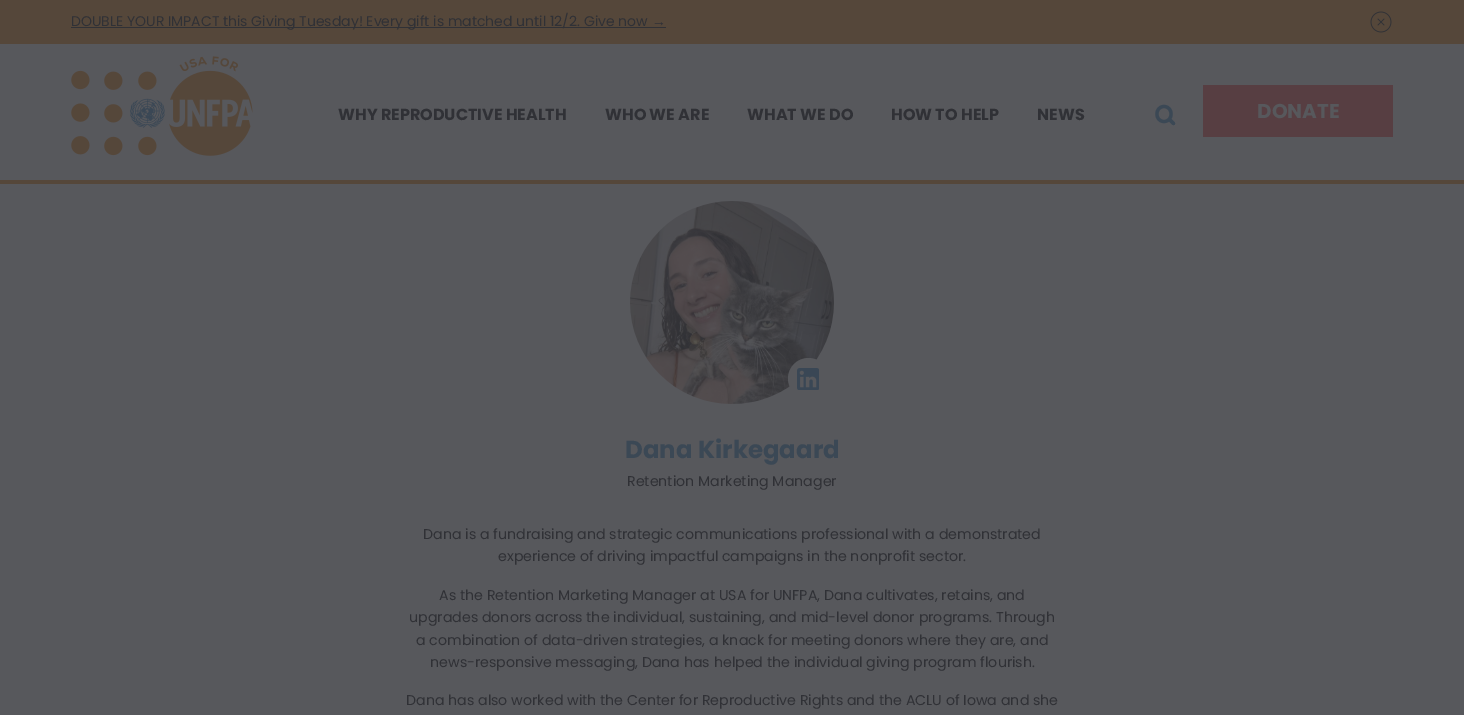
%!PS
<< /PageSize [1464 715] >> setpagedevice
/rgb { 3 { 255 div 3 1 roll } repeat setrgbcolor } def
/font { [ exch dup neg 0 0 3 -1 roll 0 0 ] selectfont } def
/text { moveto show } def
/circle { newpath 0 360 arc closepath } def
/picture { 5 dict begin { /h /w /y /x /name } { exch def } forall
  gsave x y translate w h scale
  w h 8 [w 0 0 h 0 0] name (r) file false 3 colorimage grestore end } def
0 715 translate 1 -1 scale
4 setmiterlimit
87 88 92 rgb
0 0 1464 715 rectfill
85 71 58 rgb
0 0 1464 44 rectfill
48 49 54 rgb
71 27 595 1 rectfill
(img_01.rgb) 1370 11 22 22 picture
85 71 58 rgb
0 180 1464 4 rectfill
(img_02.rgb) 71 56 182 100 picture
59 72 85 rgb
3.2 setlinewidth
1 setlinecap
1 setlinejoin
1164 121.5 moveto 9.5 0 9.5 -15 0 -15 rcurveto -9.5 0 -9.5 15 0 15 rcurveto closepath 1173.5 123.5 moveto -4 -4 rlineto stroke
87 62 66 rgb
1203 85 190 52 rectfill
(img_03.rgb) 630 201 204 203 picture
87 88 92 rgb
808.5 378.5 20.5 circle fill
(img_04.rgb) 797 368 22 22 picture
/Poppins-Regular 14 font
48 49 54 rgb
(DOUBLE YOUR IMPACT this Giving Tuesday! Every gift is matched until 12/2. Give now) 71 26 text
/LiberationSerif-Regular 14 font
(→) 652 26 text
/Poppins-Bold 16 font
(WHY REPRODUCTIVE HEALTH) 338 120 text
(WHO WE ARE) 605 120 text
(WHAT WE DO) 747 120 text
(HOW TO HELP) 891 120 text
(NEWS) 1037 120 text
/Poppins-Bold 20 font
87 88 92 rgb
(DONATE) 1257 118 text
/Poppins-Bold 24.5 font
59 72 85 rgb
(Dana Kirkegaard) 625 458 text
/Poppins-Regular 14.2 font
48 49 54 rgb
(Retention Marketing Manager) 627 486 text
(Dana is a fundraising and strategic communications professional with a demonstrated) 423 539 text
(experience of driving impactful campaigns in the nonprofit sector.) 498 561 text
(As the Retention Marketing Manager at USA for UNFPA, Dana cultivates, retains, and) 439 600 text
(upgrades donors across the individual, sustaining, and mid-level donor programs. Through) 409 622 text
(a combination of data-driven strategies, a knack for meeting donors where they are, and) 416 645 text
(news-responsive messaging, Dana has helped the individual giving program flourish.) 430 667 text
(Dana has also worked with the Center for Reproductive Rights and the ACLU of Iowa and she) 406 705 text
showpage
